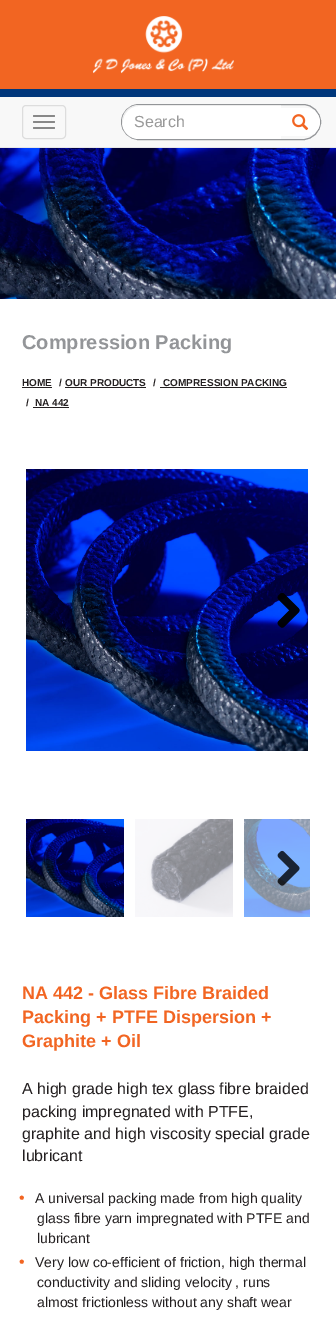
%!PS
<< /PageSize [336 1323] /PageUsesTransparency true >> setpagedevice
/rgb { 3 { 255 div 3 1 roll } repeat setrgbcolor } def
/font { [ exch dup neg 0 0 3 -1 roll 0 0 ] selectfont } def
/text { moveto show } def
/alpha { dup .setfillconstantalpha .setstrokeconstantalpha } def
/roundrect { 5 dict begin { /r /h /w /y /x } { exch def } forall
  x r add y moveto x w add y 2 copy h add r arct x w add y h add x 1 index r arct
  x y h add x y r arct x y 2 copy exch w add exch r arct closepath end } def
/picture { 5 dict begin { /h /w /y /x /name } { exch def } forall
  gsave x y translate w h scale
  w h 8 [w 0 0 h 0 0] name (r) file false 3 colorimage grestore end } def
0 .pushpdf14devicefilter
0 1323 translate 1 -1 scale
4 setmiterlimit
255 255 255 rgb
0 0 336 1323 rectfill
248 248 248 rgb
0 97 336 50 rectfill
231 231 231 rgb
0 147 336 1 rectfill
242 101 34 rgb
0 0 336 89 rectfill
0 55 123 rgb
0 89 336 8 rectfill
(img_01.rgb) 93 16 141 58 picture
221 221 221 rgb
22.5 105.5 43 33 3.5 roundrect stroke
136 136 136 rgb
33 115 22 2 1 roundrect fill
33 121 22 2 1 roundrect fill
33 127 22 2 1 roundrect fill
147 149 152 rgb
121.5 104.5 199 35 17.5 roundrect stroke
255 255 255 rgb
139 105 moveto 142 0 rlineto 0 34 rlineto -142 0 rlineto -9.5 0 -17 -7.5 -17 -17 rcurveto 0 -9.5 7.5 -17 17 -17 rcurveto closepath fill
0.07 alpha
0 0 0 rgb
139 106 moveto 142 0 rlineto 0 -1 rlineto -142 0 rlineto -9 0 -17 8 -17 17 rcurveto 1 5 rlineto -2 -9 4 -21 16 -21 rcurveto closepath fill
1 alpha
255 255 255 rgb
280 108 moveto 26 0 rlineto 7.5 0 14 6.5 14 14 rcurveto 0 7.5 -6.5 14 -14 14 rcurveto -26 0 rlineto closepath fill
(img_02.rgb) 292 114 17 17 picture
(img_03.rgb) 0 148 336 151 picture
35 31 32 rgb
22 387 30 1 rectfill
65 387 81 1 rectfill
160 387 127 1 rectfill
33 407 36 1 rectfill
(img_04.rgb) 26 469 282 282 picture
(img_05.rgb) 277 593 23 35 picture
(img_06.rgb) 277 593 23 35 picture
(img_07.rgb) 26 819 98 98 picture
(img_08.rgb) 135 819 98 98 picture
(img_09.rgb) 244 819 66 98 picture
(img_10.rgb) 277 850 23 36 picture
/LiberationSans-Regular 16 font
153 153 153 rgb
(Search) 134 127 text
/LiberationSans-Bold 20 font
147 149 152 rgb
(Compression Packing) 22 349 text
/LiberationSans-Bold 10 font
35 31 32 rgb
(HOME) 22 386 text
(/) 59 386 text
(OUR PRODUCTS) 65 386 text
(/) 153 386 text
(COMPRESSION PACKING) 163 386 text
(/) 26 406 text
(NA 442) 35 406 text
/LiberationSans-Bold 18 font
242 101 34 rgb
(NA 442 - Glass Fibre Braided) 22 999 text
(Packing + PTFE Dispersion +) 22 1023 text
(Graphite + Oil) 22 1047 text
/LiberationSans-Regular 16 font
35 31 32 rgb
(A high grade high tex glass fibre braided) 22 1094 text
(packing impregnated with PTFE,) 22 1117 text
(graphite and high viscosity special grade) 22 1139 text
(lubricant) 22 1161 text
242 101 34 rgb
(•) 19 1203 text
/LiberationSans-Regular 14 font
35 31 32 rgb
(A universal packing made from high quality) 35 1203 text
(glass fibre yarn impregnated with PTFE and) 37 1223 text
(lubricant) 37 1243 text
/LiberationSans-Regular 16 font
242 101 34 rgb
(•) 19 1267 text
/LiberationSans-Regular 14 font
35 31 32 rgb
(Very low co-efficient of friction, high thermal) 35 1267 text
(conductivity and sliding velocity , runs) 37 1287 text
(almost frictionless without any shaft wear) 37 1307 text
.poppdf14devicefilter showpage
